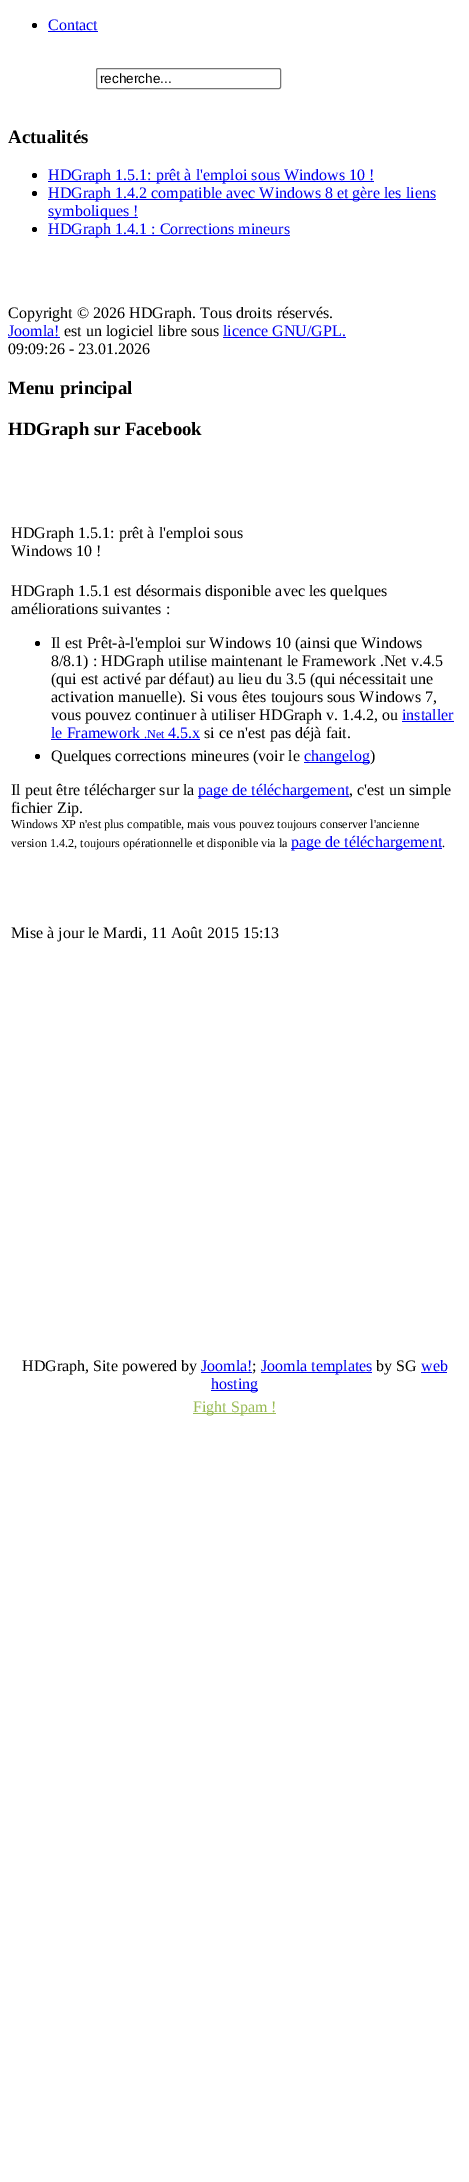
%!PS
<< /PageSize [469 2182] >> setpagedevice
/rgb { 3 { 255 div 3 1 roll } repeat setrgbcolor } def
/font { [ exch dup neg 0 0 3 -1 roll 0 0 ] selectfont } def
/text { moveto show } def
/circle { newpath 0 360 arc closepath } def
/roundrect { 5 dict begin { /r /h /w /y /x } { exch def } forall
  x r add y moveto x w add y 2 copy h add r arct x w add y h add x 1 index r arct
  x y h add x y r arct x y 2 copy exch w add exch r arct closepath end } def
0 2182 translate 1 -1 scale
4 setmiterlimit
255 255 255 rgb
0 0 469 2182 rectfill
0 0 0 rgb
34.5 25.5 2.5 circle fill
0 0 238 rgb
48 31 50 1 rectfill
118 118 118 rgb
96.5 68.5 184 20 1.5 roundrect stroke
0 0 0 rgb
34.5 175.5 2.5 circle fill
0 0 238 rgb
48 181 326 1 rectfill
0 0 0 rgb
34.5 193.5 2.5 circle fill
0 0 238 rgb
48 199 388 1 rectfill
48 217 90 1 rectfill
0 0 0 rgb
34.5 229.5 2.5 circle fill
0 0 238 rgb
48 235 242 1 rectfill
8 337 52 1 rectfill
223 337 123 1 rectfill
0 0 0 rgb
37.5 643.5 2.5 circle fill
0 0 238 rgb
402 721 52 1 rectfill
51 739 149 1 rectfill
0 0 0 rgb
37.5 756.5 2.5 circle fill
0 0 238 rgb
304 762 66 1 rectfill
198 796 151 1 rectfill
291 848 151 1 rectfill
201 1372 51 1 rectfill
261 1372 111 1 rectfill
421 1372 26 1 rectfill
211 1390 47 1 rectfill
152 186 84 rgb
193 1413 83 1 rectfill
/LiberationSerif-Regular 16 font
0 0 238 rgb
(Contact) 48 30 text
/LiberationSans-Regular 13.5 font
0 0 0 rgb
(recherche...) 100 83 text
/LiberationSerif-Bold 18.75 font
(Actualités) 8 143 text
/LiberationSerif-Regular 16 font
0 0 238 rgb
(HDGraph 1.5.1: prêt à l'emploi sous Windows 10 !) 48 180 text
(HDGraph 1.4.2 compatible avec Windows 8 et gère les liens) 48 198 text
(symboliques !) 48 216 text
(HDGraph 1.4.1 : Corrections mineurs) 48 234 text
0 0 0 rgb
(Copyright © 2026 HDGraph. Tous droits réservés.) 8 318 text
0 0 238 rgb
(Joomla!) 8 336 text
0 0 0 rgb
(est un logiciel libre sous) 64 336 text
0 0 238 rgb
(licence GNU/GPL.) 223 336 text
0 0 0 rgb
(09:09:26 - 23.01.2026) 8 354 text
/LiberationSerif-Bold 18.75 font
(Menu principal) 8 394 text
(HDGraph sur Facebook) 8 435 text
/LiberationSerif-Regular 16 font
(HDGraph 1.5.1: prêt à l'emploi sous) 11 538 text
(Windows 10 !) 11 556 text
(HDGraph 1.5.1 est désormais disponible avec les quelques) 11 596 text
(améliorations suivantes :) 11 614 text
(Il est Prêt-à-l'emploi sur Windows 10 \(ainsi que Windows) 51 648 text
(8/8.1\) : HDGraph utilise maintenant le Framework .Net v.4.5) 51 666 text
(\(qui est activé par défaut\) au lieu du 3.5 \(qui nécessitait une) 51 684 text
(activation manuelle\). Si vous êtes toujours sous Windows 7,) 51 702 text
(vous pouvez continuer à utiliser HDGraph v. 1.4.2, ou) 51 720 text
0 0 238 rgb
(installer) 402 720 text
(le Framework) 51 738 text
/LiberationSerif-Regular 12.15 font
(.Net) 144 738 text
/LiberationSerif-Regular 16 font
(4.5.x) 168 738 text
0 0 0 rgb
(si ce n'est pas déjà fait.) 204 738 text
(Quelques corrections mineures \(voir le) 51 761 text
0 0 238 rgb
(changelog) 304 761 text
0 0 0 rgb
(\)) 370 761 text
(Il peut être télécharger sur la) 11 795 text
0 0 238 rgb
(page de téléchargement) 198 795 text
0 0 0 rgb
(, c'est un simple) 349 795 text
(fichier Zip.) 11 813 text
/LiberationSerif-Regular 12.15 font
(Windows XP n'est plus compatible, mais vous pouvez toujours conserver l'ancienne) 11 828 text
(version 1.4.2, toujours opérationnelle et disponible via la) 11 847 text
/LiberationSerif-Regular 16 font
0 0 238 rgb
(page de téléchargement) 291 847 text
/LiberationSerif-Regular 12.15 font
0 0 0 rgb
(.) 442 847 text
/LiberationSerif-Regular 16 font
(Mise à jour le Mardi, 11 Août 2015 15:13) 11 938 text
(HDGraph, Site powered by) 22 1371 text
0 0 238 rgb
(Joomla!) 201 1371 text
0 0 0 rgb
(;) 252 1371 text
0 0 238 rgb
(Joomla templates) 261 1371 text
0 0 0 rgb
(by SG) 376 1371 text
0 0 238 rgb
(web) 421 1371 text
(hosting) 211 1389 text
152 186 84 rgb
(Fight Spam !) 193 1412 text
showpage
